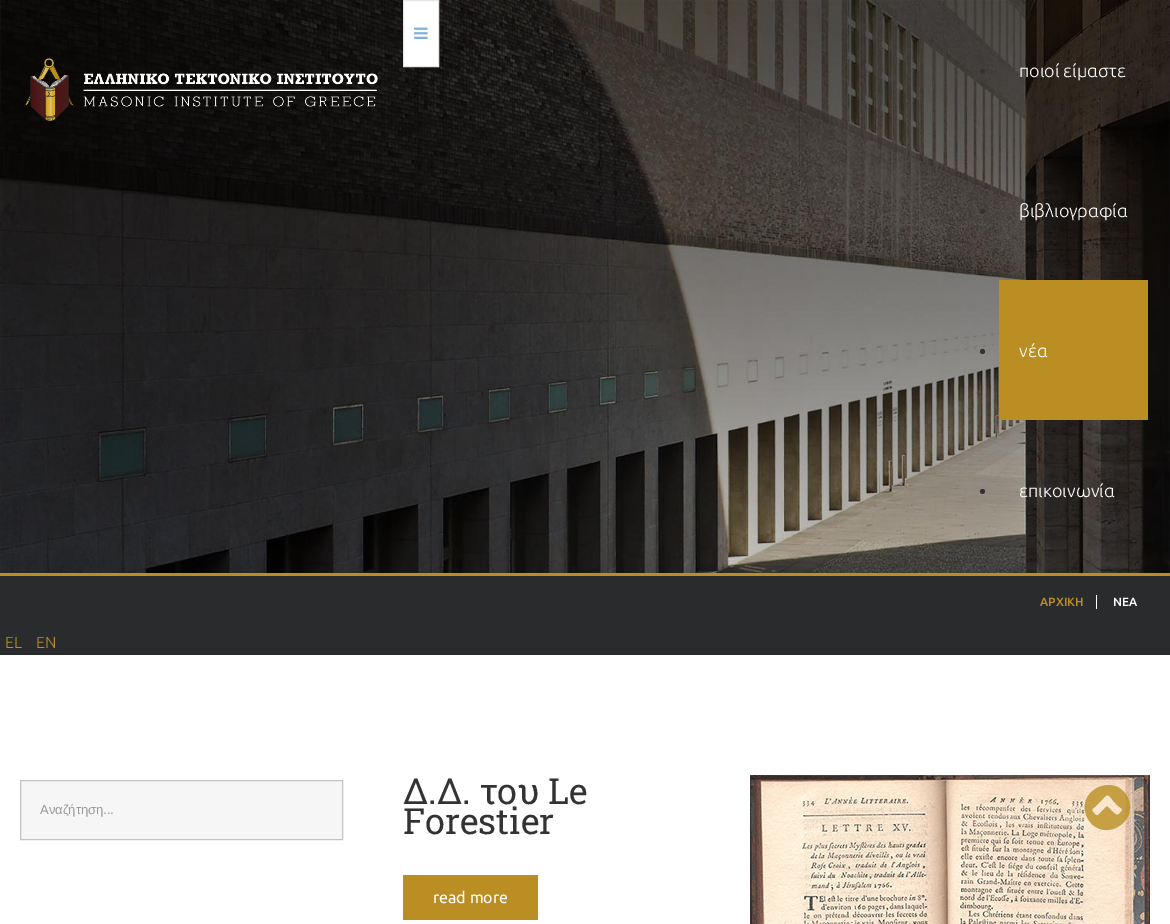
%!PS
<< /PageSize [1170 924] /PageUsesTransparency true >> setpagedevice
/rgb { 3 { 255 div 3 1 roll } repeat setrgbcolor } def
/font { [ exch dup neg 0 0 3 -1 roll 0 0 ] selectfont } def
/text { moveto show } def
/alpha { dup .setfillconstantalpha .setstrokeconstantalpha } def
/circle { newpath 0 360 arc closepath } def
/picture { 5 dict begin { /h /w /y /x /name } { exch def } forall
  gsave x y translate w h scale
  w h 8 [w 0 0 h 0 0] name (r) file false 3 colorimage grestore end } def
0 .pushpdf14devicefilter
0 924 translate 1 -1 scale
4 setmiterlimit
255 255 255 rgb
0 0 1170 924 rectfill
(img_01.rgb) 0 0 1170 573 picture
(img_02.rgb) 24 58 354 63 picture
403.5 0.5 moveto 35 0 rlineto 0 66 rlineto -35 0 rlineto closepath gsave fill grestore
230 230 230 rgb
stroke
(img_03.rgb) 414 27 14 12 picture
51 51 51 rgb
982.5 71.5 2.5 circle fill
982.5 211.5 2.5 circle fill
982.5 351.5 2.5 circle fill
186 142 34 rgb
999 280 149 140 rectfill
51 51 51 rgb
982.5 491.5 2.5 circle fill
42 43 44 rgb
0 576 1170 79 rectfill
186 142 34 rgb
0 573 1170 3 rectfill
255 255 255 rgb
1096 595 1 14 rectfill
246 246 246 rgb
20.5 780.5 moveto 322 0 rlineto 0 59 rlineto -322 0 rlineto closepath gsave fill grestore
195 195 195 rgb
stroke
(img_04.rgb) 750 775 400 149 picture
186 142 34 rgb
403 875 135 45 rectfill
0.8 alpha
1119 814 moveto 5 -5 4 -4 -2 -9 rcurveto -12 -13 -7 -13 -20 0 rcurveto -4 4 -7 4 -3 8 rcurveto 1 1 2 3 4 2 rcurveto 9 -9 rlineto 6 6 rlineto 1 1 4 4 6 2 rcurveto closepath 1127 796 moveto 14 26 -24 48 -39 23 rcurveto -15 -26 24 -48 39 -23 rcurveto closepath fill
/Ubuntu-Light 18 font
1 alpha
255 255 255 rgb
(ποιοί είμαστε) 1019 77 text
(βιβλιογραφία) 1019 217 text
(νέα) 1019 357 text
(επικοινωνία) 1019 497 text
/Ubuntu-Medium 12 font
186 142 34 rgb
(ΑΡΧΙΚΗ) 1040 606 text
255 255 255 rgb
(ΝΕΑ) 1113 606 text
/Ubuntu-Light 16 font
186 142 34 rgb
(EL) 5 648 text
(EN) 36 648 text
/LiberationSans-Regular 13 font
153 153 153 rgb
(Αναζήτηση...) 40 814 text
/RobotoSlab-Regular 36 font
51 51 51 rgb
(Δ.Δ. του Le) 403 804 text
(Forestier) 403 834 text
/Ubuntu-Regular 16 font
255 255 255 rgb
(read more) 433 903 text
.poppdf14devicefilter showpage
